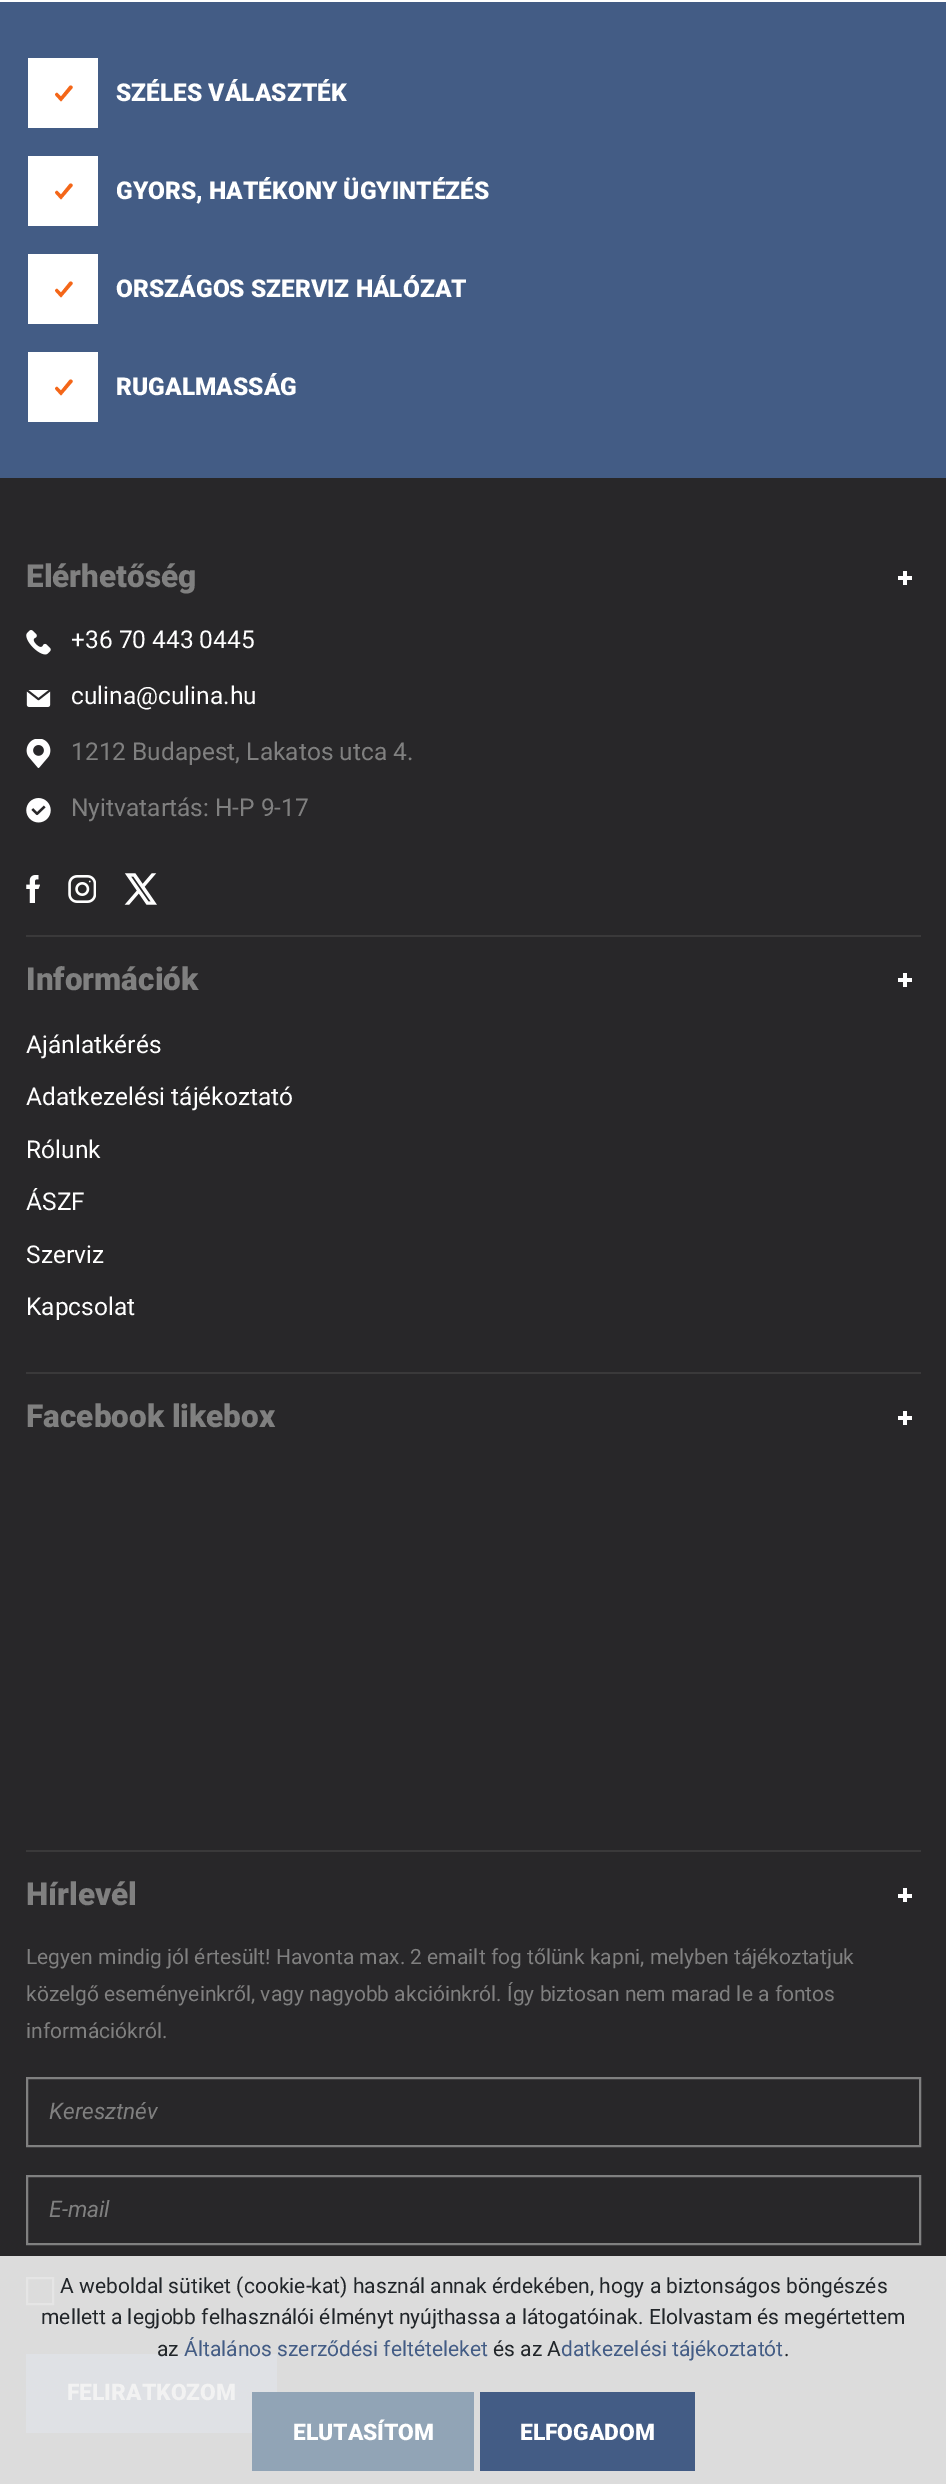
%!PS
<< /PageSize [946 2484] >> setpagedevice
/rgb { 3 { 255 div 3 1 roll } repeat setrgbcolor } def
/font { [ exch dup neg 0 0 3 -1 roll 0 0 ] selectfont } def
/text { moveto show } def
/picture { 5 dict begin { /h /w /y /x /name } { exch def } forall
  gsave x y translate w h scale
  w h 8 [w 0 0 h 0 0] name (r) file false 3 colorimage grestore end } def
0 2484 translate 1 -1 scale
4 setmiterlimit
255 255 255 rgb
0 0 946 2484 rectfill
67 92 133 rgb
0 2 946 476 rectfill
255 255 255 rgb
28 58 70 70 rectfill
244 102 24 rgb
72 86 moveto -1 -0.5 -2 -0.5 -2.5 0 rcurveto -8.5 10.5 rlineto -3 -3 rlineto -0.5 -0.5 -1.5 -1 -2 -0.5 rcurveto -1 1 -1 1.5 -0.5 2.5 rcurveto 5.5 6 rlineto 11.5 -13.5 rlineto 0.5 -0.5 0 -1.5 -0.5 -2 rcurveto closepath fill
255 255 255 rgb
28 156 70 70 rectfill
244 102 24 rgb
72 184 moveto -1 -0.5 -2 -0.5 -2.5 0 rcurveto -8.5 10.5 rlineto -3 -3 rlineto -0.5 -0.5 -1.5 -1 -2 -0.5 rcurveto -1 1 -1 1.5 -0.5 2.5 rcurveto 5.5 6 rlineto 11.5 -13.5 rlineto 0.5 -0.5 0 -1.5 -0.5 -2 rcurveto closepath fill
255 255 255 rgb
28 254 70 70 rectfill
244 102 24 rgb
72 282 moveto -1 -0.5 -2 -0.5 -2.5 0 rcurveto -8.5 10.5 rlineto -3 -3 rlineto -0.5 -0.5 -1.5 -1 -2 -0.5 rcurveto -1 1 -1 1.5 -0.5 2.5 rcurveto 5.5 6 rlineto 11.5 -13.5 rlineto 0.5 -0.5 0 -1.5 -0.5 -2 rcurveto closepath fill
255 255 255 rgb
28 352 70 70 rectfill
244 102 24 rgb
72 380 moveto -1 -0.5 -2 -0.5 -2.5 0 rcurveto -8.5 10.5 rlineto -3 -3 rlineto -0.5 -0.5 -1.5 -1 -2 -0.5 rcurveto -1 1 -1 1.5 -0.5 2.5 rcurveto 5.5 6 rlineto 11.5 -13.5 rlineto 0.5 -0.5 0 -1.5 -0.5 -2 rcurveto closepath fill
40 39 41 rgb
0 478 946 1778 rectfill
220 220 220 rgb
0 2256 946 228 rectfill
58 57 58 rgb
26 935 895 2 rectfill
255 255 255 rgb
903 571 4 14 rectfill
898 576 14 4 rectfill
(img_01.rgb) 26 630 25 25 picture
(img_02.rgb) 26 690 25 17 picture
(img_03.rgb) 26 739 25 29 picture
(img_04.rgb) 26 798 25 25 picture
(img_05.rgb) 26 875 14 28 picture
(img_06.rgb) 68 875 28 28 picture
(img_07.rgb) 124 873 33 32 picture
58 57 58 rgb
26 1372 895 2 rectfill
255 255 255 rgb
903 973 4 14 rectfill
898 978 14 4 rectfill
58 57 58 rgb
26 1850 895 2 rectfill
255 255 255 rgb
903 1411 4 14 rectfill
898 1416 14 4 rectfill
903 1888 4 14 rectfill
898 1894 14 4 rectfill
128 128 128 rgb
2 setlinewidth
27 2078 893 68 rectstroke
27 2176 893 68 rectstroke
229 229 229 rgb
27 2278 26 26 rectstroke
223 225 229 rgb
26 2354 251 79 rectfill
145 164 182 rgb
252 2392 222 79 rectfill
67 92 133 rgb
480 2392 215 79 rectfill
/Roboto-Black 24.5 font
255 255 255 rgb
(SZÉLES VÁLASZTÉK) 116 101 text
(GYORS, HATÉKONY ÜGYINTÉZÉS) 116 199 text
(ORSZÁGOS SZERVIZ HÁLÓZAT) 116 297 text
(RUGALMASSÁG) 116 395 text
/Roboto-Black 31.5 font
128 128 128 rgb
(Elérhetőség) 26 587 text
/Roboto-Regular 24.5 font
255 255 255 rgb
(+36 70 443 0445) 71 648 text
(culina@culina.hu) 71 704 text
128 128 128 rgb
(1212 Budapest, Lakatos utca 4.) 71 760 text
(Nyitvatartás: H-P 9-17) 71 816 text
/Roboto-Black 31.5 font
(Információk) 26 990 text
/Roboto-Regular 24.5 font
255 255 255 rgb
(Ajánlatkérés) 26 1053 text
(Adatkezelési tájékoztató) 26 1105 text
(Rólunk) 26 1158 text
(ÁSZF) 26 1210 text
(Szerviz) 26 1263 text
(Kapcsolat) 26 1315 text
/Roboto-Black 31.5 font
128 128 128 rgb
(Facebook likebox) 26 1427 text
(Hírlevél) 26 1905 text
/Roboto-Regular 21 font
(Legyen mindig jól értesült! Havonta max. 2 emailt fog tőlünk kapni, melyben tájékoztatjuk) 26 1964 text
(közelgő eseményeinkről, vagy nagyobb akcióinkról. Így biztosan nem marad le a fontos) 26 2001 text
(információkról.) 26 2038 text
/Roboto-Italic 22.75 font
(Keresztnév) 49 2119 text
(E-mail) 49 2217 text
/Roboto-Black 22.75 font
242 242 242 rgb
(FELIRATKOZOM) 67 2400 text
/Roboto-Regular 21 font
33 37 41 rgb
(A weboldal sütiket \(cookie-kat\) használ annak érdekében, hogy a biztonságos böngészés) 60 2293 text
(mellett a legjobb felhasználói élményt nyújthassa a látogatóinak. Elolvastam és megértettem) 41 2324 text
(az) 157 2356 text
67 92 133 rgb
(Általános szerződési feltételeket) 184 2356 text
33 37 41 rgb
(és az A) 493 2356 text
67 92 133 rgb
(datkezelési tájékoztatót) 561 2356 text
33 37 41 rgb
(.) 784 2356 text
/Roboto-Black 22.75 font
255 255 255 rgb
(ELUTASÍTOM) 293 2440 text
(ELFOGADOM) 520 2440 text
showpage
